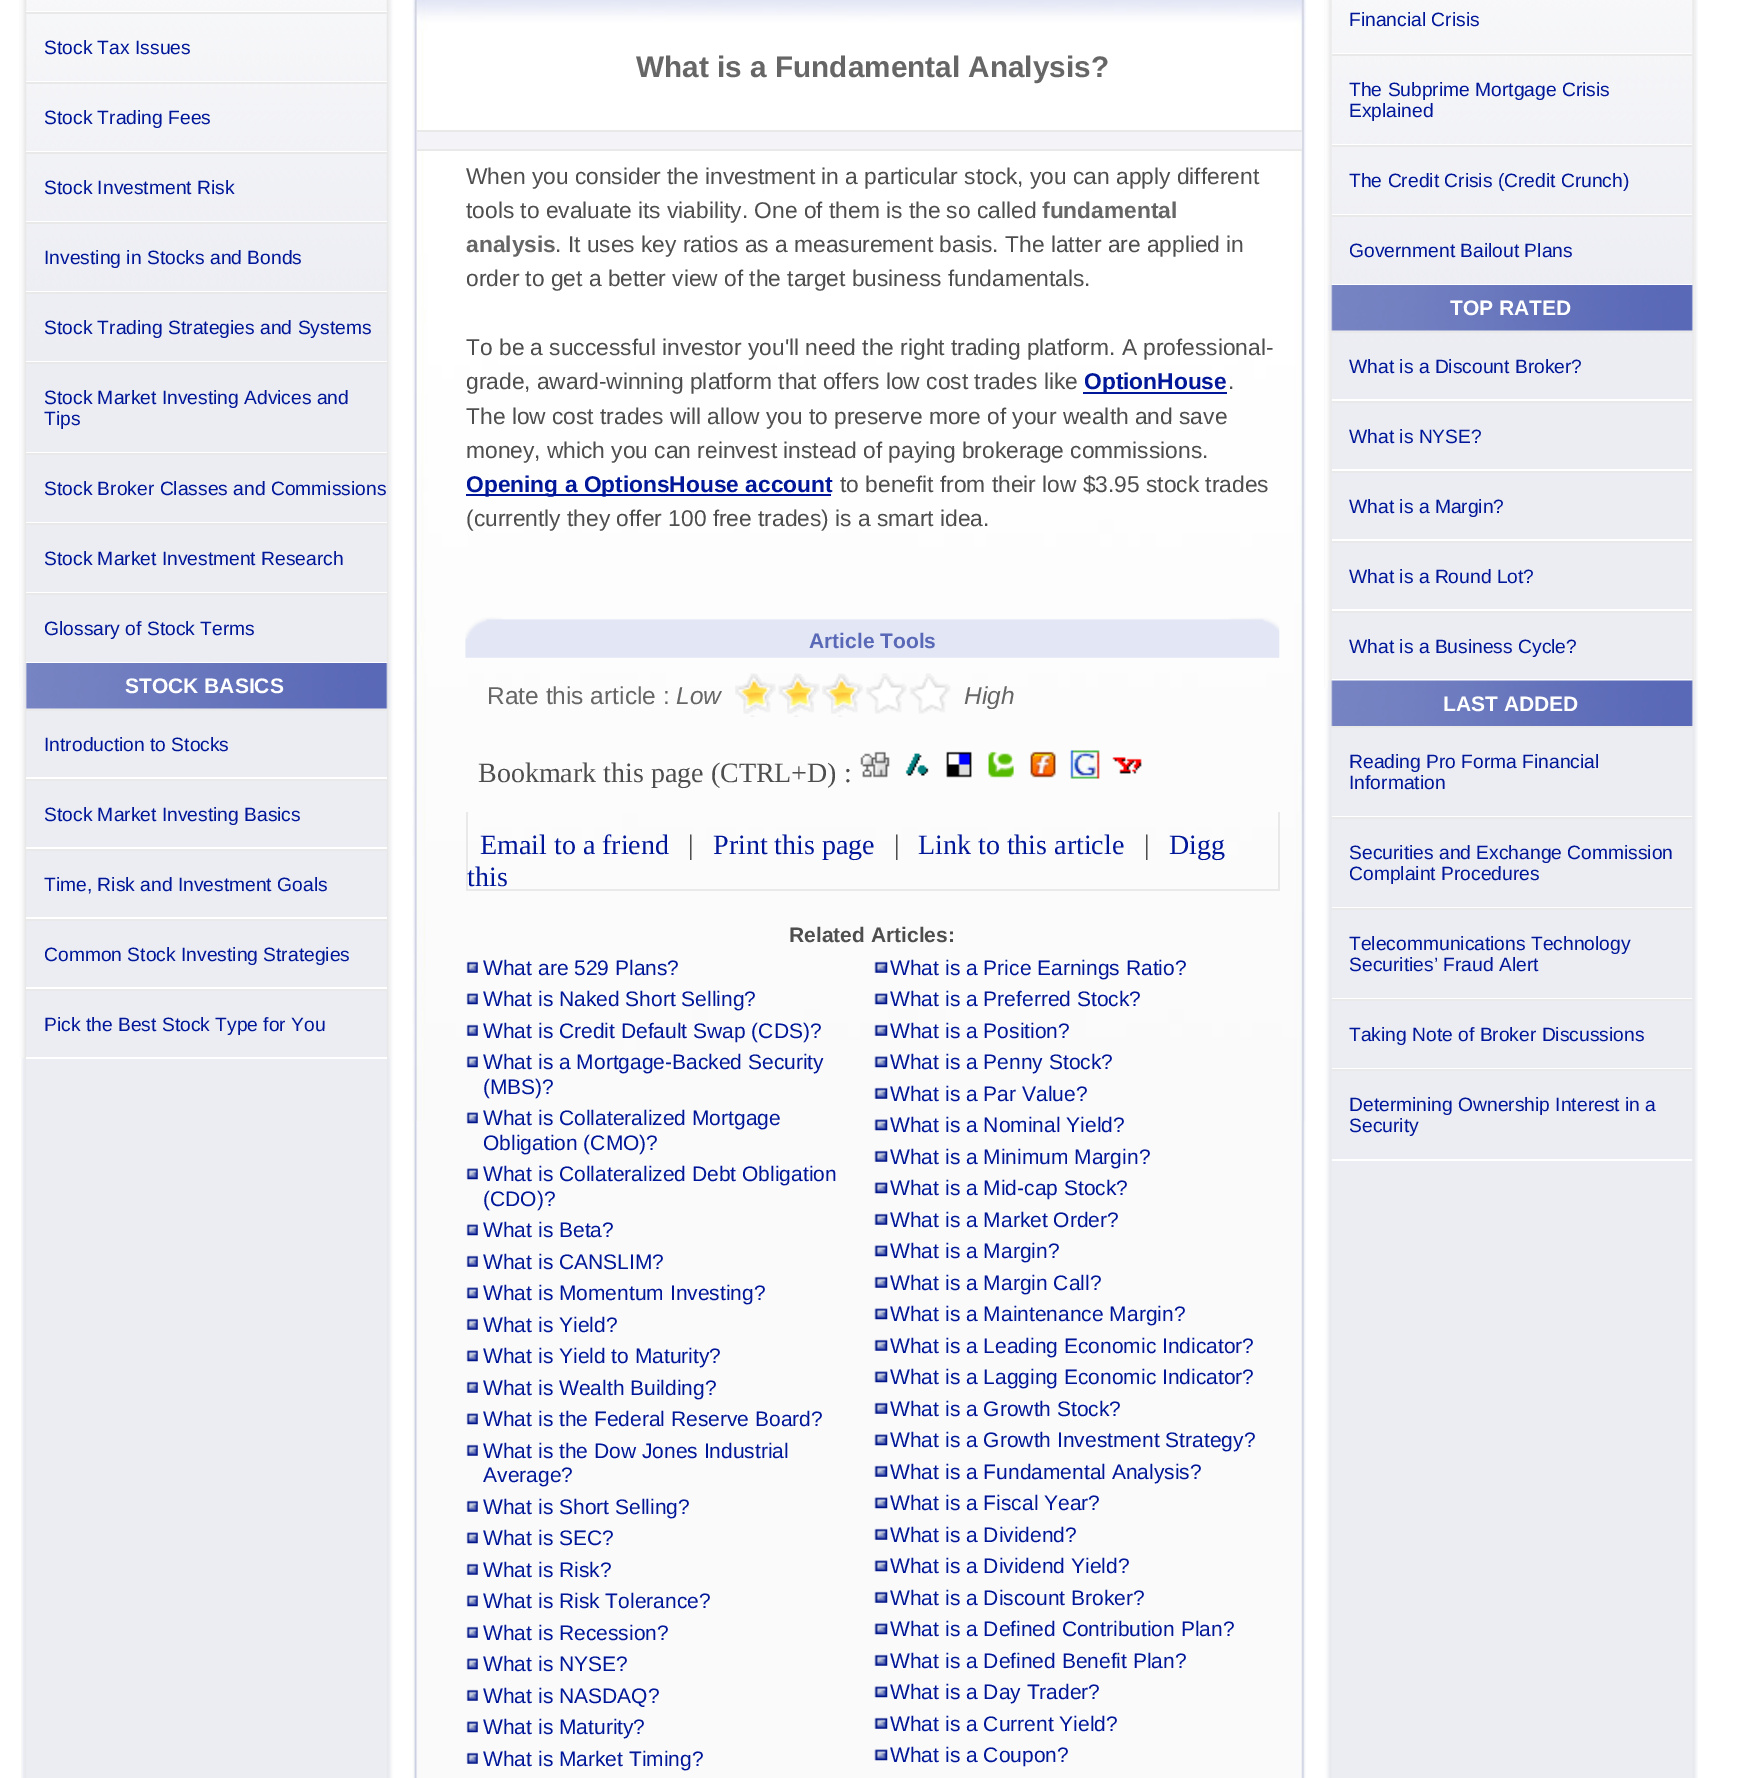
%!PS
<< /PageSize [1737 1778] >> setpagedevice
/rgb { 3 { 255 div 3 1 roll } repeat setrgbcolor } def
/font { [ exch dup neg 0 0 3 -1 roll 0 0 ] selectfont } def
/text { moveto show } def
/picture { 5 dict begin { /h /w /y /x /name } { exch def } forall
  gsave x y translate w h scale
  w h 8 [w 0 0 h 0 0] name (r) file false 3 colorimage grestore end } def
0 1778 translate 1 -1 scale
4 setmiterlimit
255 255 255 rgb
0 0 1737 1778 rectfill
(img_01.rgb) 21 0 1677 1778 picture
(img_02.rgb) 19 0 369 688 picture
(img_03.rgb) 19 0 371 1058 picture
26 11 361 1 rectfill
233 233 233 rgb
26 12 361 2 rectfill
255 255 255 rgb
26 81 361 1 rectfill
233 233 233 rgb
26 82 361 2 rectfill
255 255 255 rgb
26 151 361 1 rectfill
233 233 233 rgb
26 152 361 2 rectfill
255 255 255 rgb
26 221 361 1 rectfill
233 233 233 rgb
26 222 361 2 rectfill
255 255 255 rgb
26 291 361 1 rectfill
233 233 233 rgb
26 292 361 2 rectfill
255 255 255 rgb
26 361 361 1 rectfill
233 233 233 rgb
26 362 361 2 rectfill
255 255 255 rgb
26 452 361 1 rectfill
233 233 233 rgb
26 453 361 2 rectfill
255 255 255 rgb
26 522 361 1 rectfill
233 233 233 rgb
26 523 361 2 rectfill
255 255 255 rgb
26 592 361 1 rectfill
233 233 233 rgb
26 593 361 2 rectfill
255 255 255 rgb
26 662 361 1 rectfill
(img_04.rgb) 23 663 367 46 picture
233 233 233 rgb
26 709 361 2 rectfill
255 255 255 rgb
26 777 361 2 rectfill
233 233 233 rgb
26 779 361 2 rectfill
255 255 255 rgb
26 847 361 2 rectfill
233 233 233 rgb
26 849 361 2 rectfill
255 255 255 rgb
26 917 361 2 rectfill
233 233 233 rgb
26 919 361 2 rectfill
255 255 255 rgb
26 987 361 2 rectfill
233 233 233 rgb
26 989 361 2 rectfill
255 255 255 rgb
26 1057 361 2 rectfill
(img_05.rgb) 413 0 893 1121 picture
244 244 248 rgb
417 132 884 17 rectfill
233 233 233 rgb
417 130 885 2 rectfill
417 149 885 2 rectfill
0 23 153 rgb
1083 392 144 2 rectfill
466 494 365 2 rectfill
(img_06.rgb) 465 617 815 41 picture
(img_07.rgb) 735 673 216 41 picture
(img_08.rgb) 735 674 122 43 picture
(img_09.rgb) 860 751 30 27 picture
(img_10.rgb) 905 753 24 23 picture
(img_11.rgb) 946 751 26 27 picture
(img_12.rgb) 988 751 26 27 picture
(img_13.rgb) 1030 751 26 27 picture
(img_14.rgb) 1070 750 30 29 picture
(img_15.rgb) 1112 757 30 17 picture
233 233 233 rgb
1278 812 2 79 rectfill
466 889 813 2 rectfill
466 812 2 79 rectfill
(img_16.rgb) 466 961 12 12 picture
(img_17.rgb) 466 993 12 12 picture
(img_18.rgb) 466 1024 12 12 picture
(img_19.rgb) 466 1056 12 12 picture
(img_19.rgb) 466 1112 12 12 picture
(img_19.rgb) 466 1168 12 12 picture
(img_19.rgb) 466 1224 12 12 picture
(img_20.rgb) 466 1255 12 12 picture
(img_19.rgb) 466 1287 12 12 picture
(img_20.rgb) 466 1318 12 12 picture
(img_19.rgb) 466 1350 12 12 picture
(img_20.rgb) 466 1381 12 12 picture
(img_19.rgb) 466 1413 12 12 picture
(img_20.rgb) 466 1444 12 12 picture
(img_20.rgb) 466 1500 12 12 picture
(img_19.rgb) 466 1532 12 12 picture
(img_20.rgb) 466 1563 12 12 picture
(img_19.rgb) 466 1595 12 12 picture
(img_20.rgb) 466 1626 12 12 picture
(img_19.rgb) 466 1658 12 12 picture
(img_20.rgb) 466 1689 12 12 picture
(img_21.rgb) 466 1721 12 12 picture
(img_20.rgb) 466 1752 12 12 picture
(img_22.rgb) 874 961 14 12 picture
(img_23.rgb) 874 993 14 12 picture
(img_24.rgb) 874 1024 14 12 picture
(img_25.rgb) 874 1056 14 12 picture
(img_26.rgb) 874 1087 14 12 picture
(img_25.rgb) 874 1119 14 12 picture
(img_26.rgb) 874 1150 14 12 picture
(img_25.rgb) 874 1182 14 12 picture
(img_26.rgb) 874 1213 14 12 picture
(img_25.rgb) 874 1245 14 12 picture
(img_26.rgb) 874 1276 14 12 picture
(img_25.rgb) 874 1308 14 12 picture
(img_26.rgb) 874 1339 14 12 picture
(img_25.rgb) 874 1371 14 12 picture
(img_26.rgb) 874 1402 14 12 picture
(img_25.rgb) 874 1434 14 12 picture
(img_26.rgb) 874 1465 14 12 picture
(img_25.rgb) 874 1497 14 12 picture
(img_26.rgb) 874 1528 14 12 picture
(img_27.rgb) 874 1560 14 12 picture
(img_26.rgb) 874 1591 14 12 picture
(img_25.rgb) 874 1623 14 12 picture
(img_26.rgb) 874 1654 14 12 picture
(img_25.rgb) 874 1686 14 12 picture
(img_28.rgb) 874 1717 14 12 picture
(img_25.rgb) 874 1749 14 12 picture
(img_29.rgb) 1324 0 372 688 picture
(img_30.rgb) 1325 0 371 688 picture
255 255 255 rgb
1332 53 360 1 rectfill
233 233 233 rgb
1332 54 360 2 rectfill
255 255 255 rgb
1332 144 360 1 rectfill
233 233 233 rgb
1332 145 360 2 rectfill
255 255 255 rgb
1332 214 360 1 rectfill
233 233 233 rgb
1332 215 360 2 rectfill
255 255 255 rgb
1332 284 360 1 rectfill
(img_31.rgb) 1328 285 365 46 picture
233 233 233 rgb
1332 331 360 2 rectfill
255 255 255 rgb
1332 399 360 2 rectfill
233 233 233 rgb
1332 401 360 2 rectfill
255 255 255 rgb
1332 469 360 2 rectfill
233 233 233 rgb
1332 471 360 2 rectfill
255 255 255 rgb
1332 539 360 2 rectfill
233 233 233 rgb
1332 541 360 2 rectfill
255 255 255 rgb
1332 609 360 2 rectfill
233 233 233 rgb
1332 611 360 2 rectfill
255 255 255 rgb
1332 679 360 2 rectfill
(img_32.rgb) 1328 680 365 46 picture
233 233 233 rgb
1332 726 360 2 rectfill
255 255 255 rgb
1332 816 360 1 rectfill
233 233 233 rgb
1332 817 360 2 rectfill
255 255 255 rgb
1332 907 360 1 rectfill
233 233 233 rgb
1332 908 360 2 rectfill
255 255 255 rgb
1332 998 360 1 rectfill
233 233 233 rgb
1332 999 360 2 rectfill
255 255 255 rgb
1332 1068 360 1 rectfill
233 233 233 rgb
1332 1069 360 2 rectfill
255 255 255 rgb
1332 1159 360 2 rectfill
/LiberationSans-Regular 19.25 font
0 23 153 rgb
(Stock Tax Issues) 44 54 text
(Stock Trading Fees) 44 124 text
(Stock Investment Risk) 44 194 text
(Investing in Stocks and Bonds) 44 264 text
(Stock Trading Strategies and Systems) 44 334 text
(Stock Market Investing Advices and) 44 404 text
(Tips) 44 425 text
(Stock Broker Classes and Commissions) 44 495 text
(Stock Market Investment Research) 44 565 text
(Glossary of Stock Terms) 44 635 text
/LiberationSans-Bold 21 font
255 255 255 rgb
(STOCK BASICS) 125 693 text
/LiberationSans-Regular 19.25 font
0 23 153 rgb
(Introduction to Stocks) 44 751 text
(Stock Market Investing Basics) 44 821 text
(Time, Risk and Investment Goals) 44 891 text
(Common Stock Investing Strategies) 44 961 text
(Pick the Best Stock Type for You) 44 1031 text
/LiberationSans-Bold 29.75 font
102 102 102 rgb
(What is a Fundamental Analysis?) 636 77 text
/LiberationSans-Regular 22.75 font
79 78 78 rgb
(When you consider the investment in a particular stock, you can apply different) 466 184 text
(tools to evaluate its viability. One of them is the so called) 466 218 text
/LiberationSans-Bold 22.75 font
102 102 102 rgb
(fundamental) 1042 218 text
(analysis) 466 252 text
/LiberationSans-Regular 22.75 font
79 78 78 rgb
(. It uses key ratios as a measurement basis. The latter are applied in) 555 252 text
(order to get a better view of the target business fundamentals.) 466 286 text
(To be a successful investor you'll need the right trading platform. A professional-) 466 355 text
(grade, award-winning platform that offers low cost trades like) 466 389 text
/LiberationSans-Bold 22.75 font
0 23 153 rgb
(OptionHouse) 1084 389 text
/LiberationSans-Regular 22.75 font
79 78 78 rgb
(.) 1228 389 text
(The low cost trades will allow you to preserve more of your wealth and save) 466 424 text
(money, which you can reinvest instead of paying brokerage commissions.) 466 458 text
/LiberationSans-Bold 22.75 font
0 23 153 rgb
(Opening a OptionsHouse account) 466 492 text
/LiberationSans-Regular 22.75 font
79 78 78 rgb
(to benefit from their low $3.95 stock trades) 840 492 text
(\(currently they offer 100 free trades\) is a smart idea.) 466 526 text
/LiberationSans-Bold 21 font
89 104 183 rgb
(Article Tools) 809 648 text
/LiberationSans-Regular 24.5 font
102 102 102 rgb
(Rate this article :) 487 704 text
/LiberationSans-Italic 24.5 font
(Low) 676 704 text
(High) 964 704 text
/LiberationSerif-Regular 28 font
79 78 78 rgb
(Bookmark this page \(CTRL+D\) :) 478 782 text
0 23 153 rgb
(Email to a friend) 480 854 text
79 78 78 rgb
(|) 688 854 text
0 23 153 rgb
(Print this page) 713 854 text
79 78 78 rgb
(|) 894 854 text
0 23 153 rgb
(Link to this article) 918 854 text
79 78 78 rgb
(|) 1144 854 text
0 23 153 rgb
(Digg) 1169 854 text
(this) 467 886 text
/LiberationSans-Bold 21 font
79 78 78 rgb
(Related Articles:) 789 942 text
/LiberationSans-Regular 21 font
0 23 153 rgb
(What are 529 Plans?) 483 975 text
(What is Naked Short Selling?) 483 1006 text
(What is Credit Default Swap \(CDS\)?) 483 1038 text
(What is a Mortgage-Backed Security) 483 1069 text
(\(MBS\)?) 483 1094 text
(What is Collateralized Mortgage) 483 1125 text
(Obligation \(CMO\)?) 483 1150 text
(What is Collateralized Debt Obligation) 483 1181 text
(\(CDO\)?) 483 1206 text
(What is Beta?) 483 1237 text
(What is CANSLIM?) 483 1269 text
(What is Momentum Investing?) 483 1300 text
(What is Yield?) 483 1332 text
(What is Yield to Maturity?) 483 1363 text
(What is Wealth Building?) 483 1395 text
(What is the Federal Reserve Board?) 483 1426 text
(What is the Dow Jones Industrial) 483 1458 text
(Average?) 483 1482 text
(What is Short Selling?) 483 1514 text
(What is SEC?) 483 1545 text
(What is Risk?) 483 1577 text
(What is Risk Tolerance?) 483 1608 text
(What is Recession?) 483 1640 text
(What is NYSE?) 483 1671 text
(What is NASDAQ?) 483 1703 text
(What is Maturity?) 483 1734 text
(What is Market Timing?) 483 1766 text
(What is a Price Earnings Ratio?) 890 975 text
(What is a Preferred Stock?) 890 1006 text
(What is a Position?) 890 1038 text
(What is a Penny Stock?) 890 1069 text
(What is a Par Value?) 890 1101 text
(What is a Nominal Yield?) 890 1132 text
(What is a Minimum Margin?) 890 1164 text
(What is a Mid-cap Stock?) 890 1195 text
(What is a Market Order?) 890 1227 text
(What is a Margin?) 890 1258 text
(What is a Margin Call?) 890 1290 text
(What is a Maintenance Margin?) 890 1321 text
(What is a Leading Economic Indicator?) 890 1353 text
(What is a Lagging Economic Indicator?) 890 1384 text
(What is a Growth Stock?) 890 1416 text
(What is a Growth Investment Strategy?) 890 1447 text
(What is a Fundamental Analysis?) 890 1479 text
(What is a Fiscal Year?) 890 1510 text
(What is a Dividend?) 890 1542 text
(What is a Dividend Yield?) 890 1573 text
(What is a Discount Broker?) 890 1605 text
(What is a Defined Contribution Plan?) 890 1636 text
(What is a Defined Benefit Plan?) 890 1668 text
(What is a Day Trader?) 890 1699 text
(What is a Current Yield?) 890 1731 text
(What is a Coupon?) 890 1762 text
/LiberationSans-Regular 19.25 font
(Financial Crisis) 1349 26 text
(The Subprime Mortgage Crisis) 1349 96 text
(Explained) 1349 117 text
(The Credit Crisis \(Credit Crunch\)) 1349 187 text
(Government Bailout Plans) 1349 257 text
/LiberationSans-Bold 21 font
255 255 255 rgb
(TOP RATED) 1450 315 text
/LiberationSans-Regular 19.25 font
0 23 153 rgb
(What is a Discount Broker?) 1349 373 text
(What is NYSE?) 1349 443 text
(What is a Margin?) 1349 513 text
(What is a Round Lot?) 1349 583 text
(What is a Business Cycle?) 1349 653 text
/LiberationSans-Bold 21 font
255 255 255 rgb
(LAST ADDED) 1443 711 text
/LiberationSans-Regular 19.25 font
0 23 153 rgb
(Reading Pro Forma Financial) 1349 768 text
(Information) 1349 789 text
(Securities and Exchange Commission) 1349 859 text
(Complaint Procedures) 1349 880 text
(Telecommunications Technology) 1349 950 text
(Securities’ Fraud Alert) 1349 971 text
(Taking Note of Broker Discussions) 1349 1041 text
(Determining Ownership Interest in a) 1349 1111 text
(Security) 1349 1132 text
showpage
